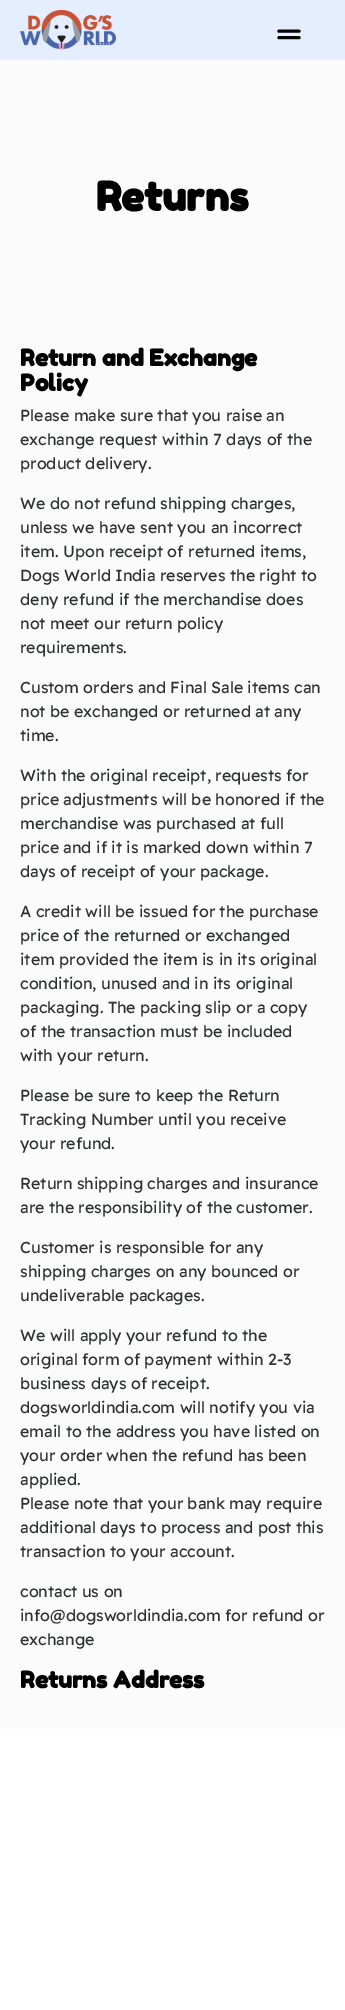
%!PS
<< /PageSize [345 2010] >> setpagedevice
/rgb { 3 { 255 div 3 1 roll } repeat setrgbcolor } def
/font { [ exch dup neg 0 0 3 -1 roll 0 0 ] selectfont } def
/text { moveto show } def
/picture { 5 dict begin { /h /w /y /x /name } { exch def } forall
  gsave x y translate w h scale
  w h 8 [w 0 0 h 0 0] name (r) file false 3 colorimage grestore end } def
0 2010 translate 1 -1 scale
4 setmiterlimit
255 255 255 rgb
0 0 345 2010 rectfill
229 238 255 rgb
0 0 345 60 rectfill
(img_01.rgb) 20 10 96 40 picture
(img_02.rgb) 277 29 24 11 picture
251 251 251 rgb
0 60 345 1669 rectfill
/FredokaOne-Bold 40 font
0 0 0 rgb
(Returns) 96 211 text
/FredokaOne-Bold 23 font
(Return and Exchange) 20 366 text
(Policy) 20 391 text
/ReadexPro-Regular 16 font
46 48 49 rgb
(Please make sure that you raise an) 20 421 text
(exchange request within 7 days of the) 20 445 text
(product delivery.) 20 469 text
(We do not refund shipping charges,) 20 509 text
(unless we have sent you an incorrect) 20 533 text
(item. Upon receipt of returned items,) 20 557 text
(Dogs World India reserves the right to) 20 581 text
(deny refund if the merchandise does) 20 605 text
(not meet our return policy) 20 629 text
(requirements.) 20 653 text
(Custom orders and Final Sale items can) 20 693 text
(not be exchanged or returned at any) 20 717 text
(time.) 20 741 text
(With the original receipt, requests for) 20 781 text
(price adjustments will be honored if the) 20 805 text
(merchandise was purchased at full) 20 829 text
(price and if it is marked down within 7) 20 853 text
(days of receipt of your package.) 20 877 text
(A credit will be issued for the purchase) 20 917 text
(price of the returned or exchanged) 20 941 text
(item provided the item is in its original) 20 965 text
(condition, unused and in its original) 20 989 text
(packaging. The packing slip or a copy) 20 1013 text
(of the transaction must be included) 20 1037 text
(with your return.) 20 1061 text
(Please be sure to keep the Return) 20 1101 text
(Tracking Number until you receive) 20 1125 text
(your refund.) 20 1149 text
(Return shipping charges and insurance) 20 1189 text
(are the responsibility of the customer.) 20 1213 text
(Customer is responsible for any) 20 1253 text
(shipping charges on any bounced or) 20 1277 text
(undeliverable packages.) 20 1301 text
(We will apply your refund to the) 20 1341 text
(original form of payment within 2-3) 20 1365 text
(business days of receipt.) 20 1389 text
(dogsworldindia.com will notify you via) 20 1413 text
(email to the address you have listed on) 20 1437 text
(your order when the refund has been) 20 1461 text
(applied.) 20 1485 text
(Please note that your bank may require) 20 1509 text
(additional days to process and post this) 20 1533 text
(transaction to your account.) 20 1557 text
(contact us on) 20 1597 text
(info@dogsworldindia.com for refund or) 20 1621 text
(exchange) 20 1645 text
/FredokaOne-Bold 23 font
0 0 0 rgb
(Returns Address) 20 1688 text
showpage
